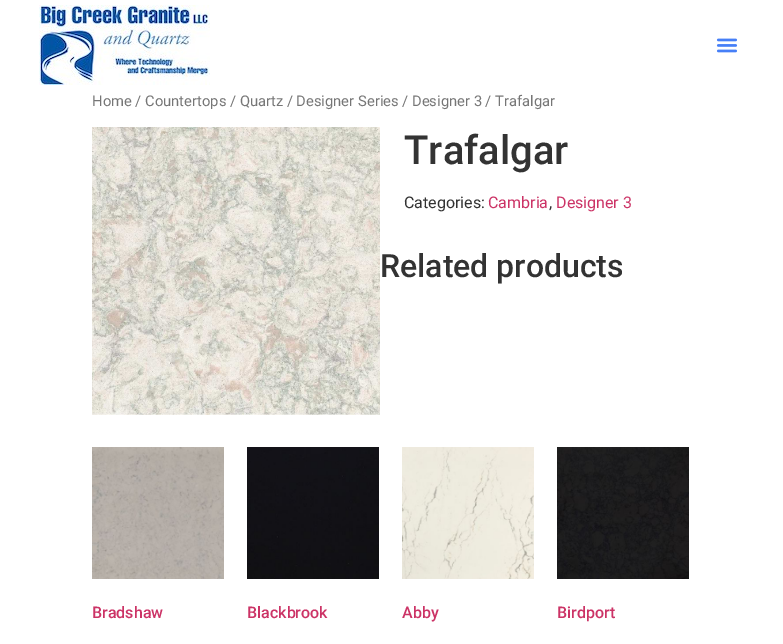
%!PS
<< /PageSize [783 644] >> setpagedevice
/rgb { 3 { 255 div 3 1 roll } repeat setrgbcolor } def
/font { [ exch dup neg 0 0 3 -1 roll 0 0 ] selectfont } def
/text { moveto show } def
/picture { 5 dict begin { /h /w /y /x /name } { exch def } forall
  gsave x y translate w h scale
  w h 8 [w 0 0 h 0 0] name (r) file false 3 colorimage grestore end } def
0 644 translate 1 -1 scale
4 setmiterlimit
255 255 255 rgb
0 0 783 644 rectfill
(img_01.rgb) 39 5 171 80 picture
(img_02.rgb) 716 38 22 15 picture
(img_03.rgb) 92 127 288 288 picture
(img_04.rgb) 92 447 132 132 picture
(img_05.rgb) 247 447 132 132 picture
(img_06.rgb) 402 447 132 132 picture
(img_07.rgb) 557 447 132 132 picture
/Roboto-Regular 14.75 font
118 118 118 rgb
(Home / Countertops / Quartz / Designer Series / Designer 3 / Trafalgar) 92 106 text
/Roboto-Medium 40 font
51 51 51 rgb
(Trafalgar) 404 164 text
/Roboto-Regular 16 font
(Categories:) 404 208 text
204 51 102 rgb
(Cambria) 488 208 text
51 51 51 rgb
(,) 549 208 text
204 51 102 rgb
(Designer 3) 556 208 text
/Roboto-Medium 32 font
51 51 51 rgb
(Related products) 380 277 text
/Roboto-Medium 16 font
204 51 102 rgb
(Bradshaw) 92 618 text
(Blackbrook) 247 618 text
(Abby) 402 618 text
(Birdport) 557 618 text
showpage
